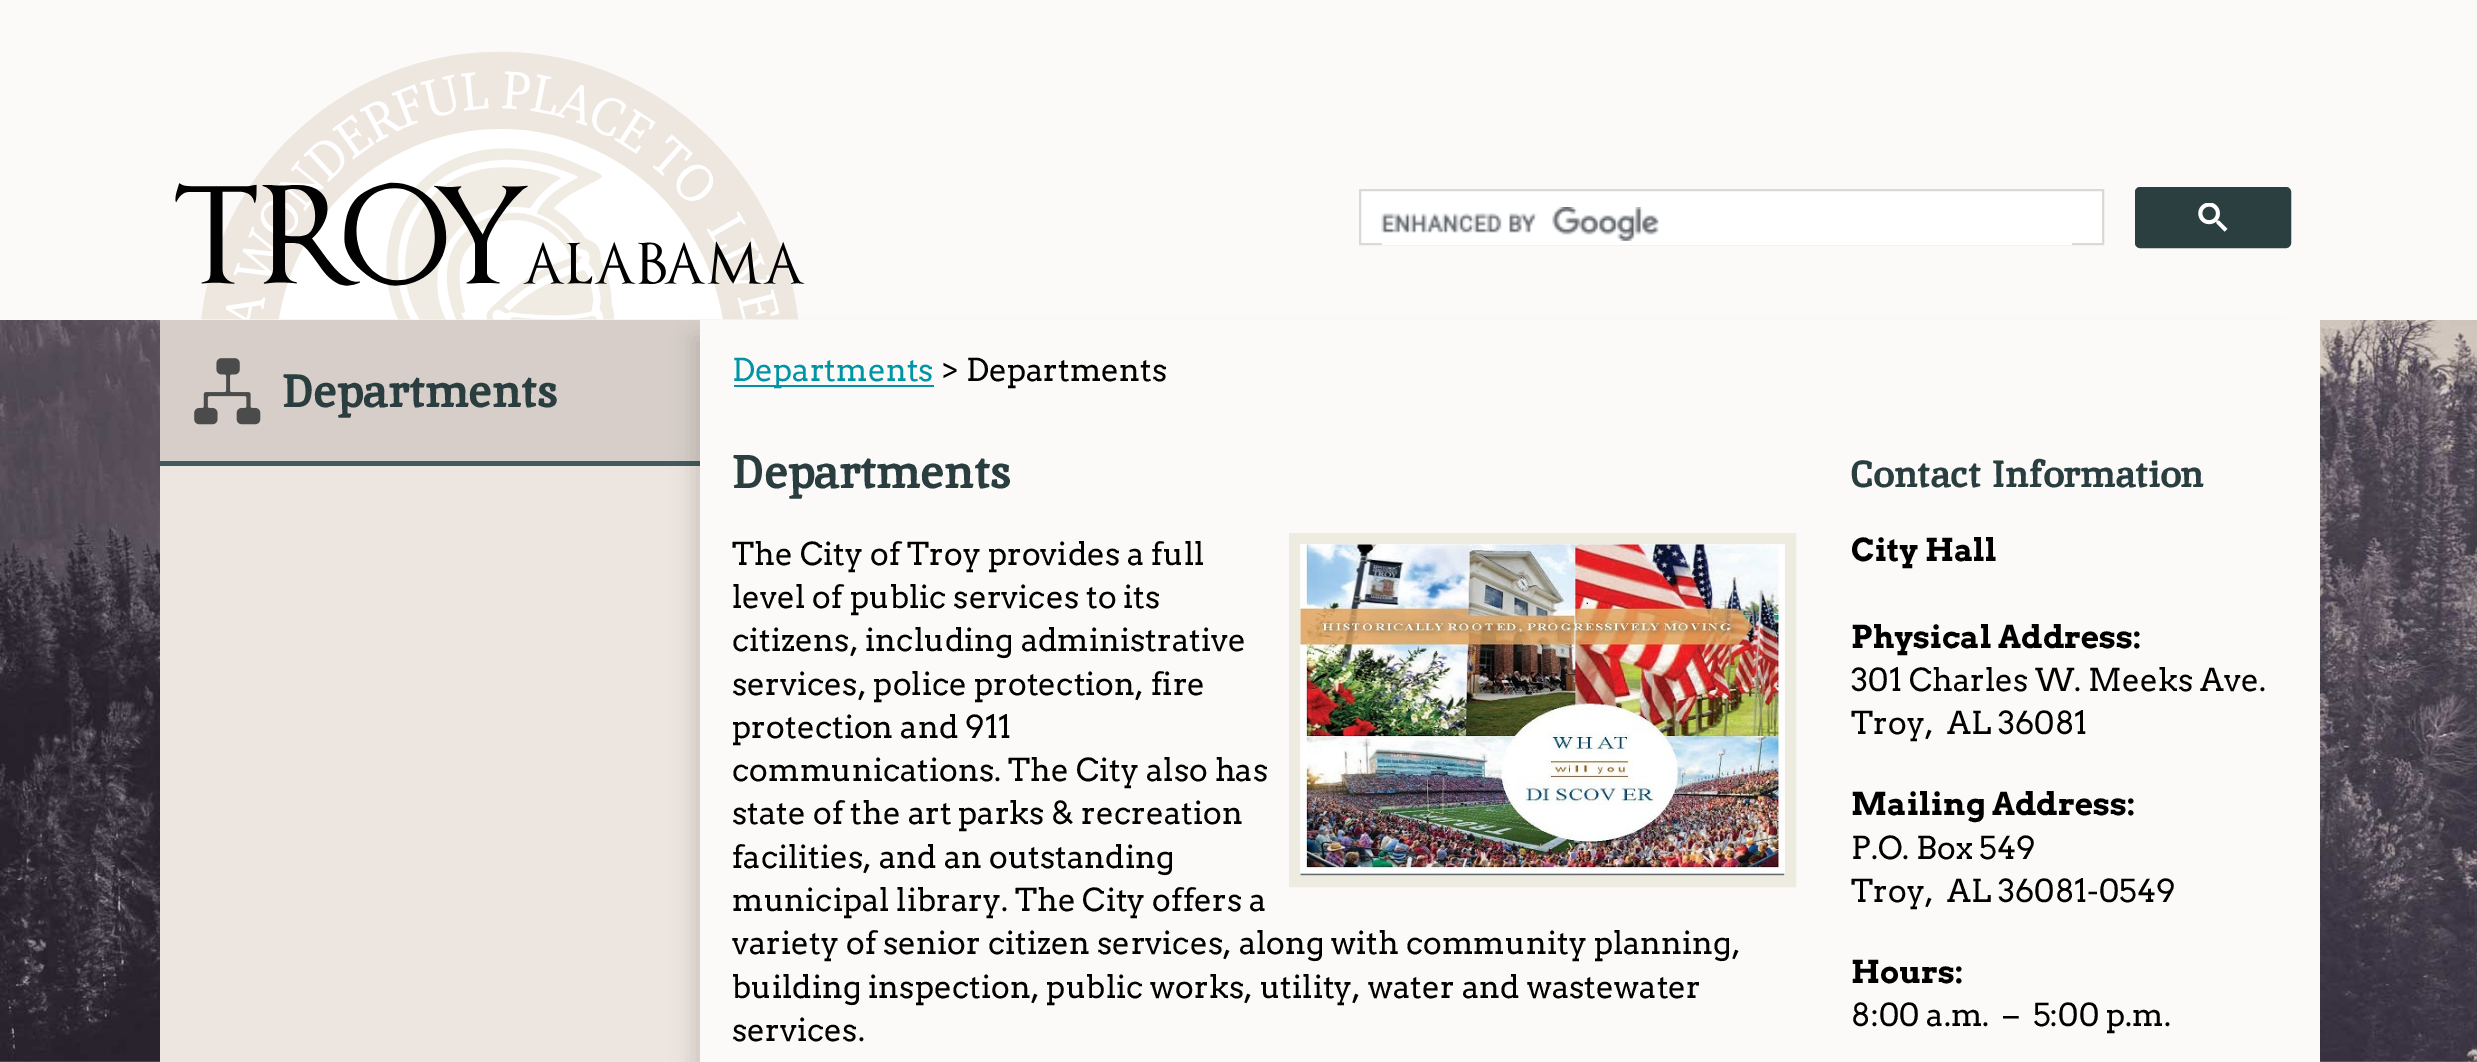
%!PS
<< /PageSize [2477 1062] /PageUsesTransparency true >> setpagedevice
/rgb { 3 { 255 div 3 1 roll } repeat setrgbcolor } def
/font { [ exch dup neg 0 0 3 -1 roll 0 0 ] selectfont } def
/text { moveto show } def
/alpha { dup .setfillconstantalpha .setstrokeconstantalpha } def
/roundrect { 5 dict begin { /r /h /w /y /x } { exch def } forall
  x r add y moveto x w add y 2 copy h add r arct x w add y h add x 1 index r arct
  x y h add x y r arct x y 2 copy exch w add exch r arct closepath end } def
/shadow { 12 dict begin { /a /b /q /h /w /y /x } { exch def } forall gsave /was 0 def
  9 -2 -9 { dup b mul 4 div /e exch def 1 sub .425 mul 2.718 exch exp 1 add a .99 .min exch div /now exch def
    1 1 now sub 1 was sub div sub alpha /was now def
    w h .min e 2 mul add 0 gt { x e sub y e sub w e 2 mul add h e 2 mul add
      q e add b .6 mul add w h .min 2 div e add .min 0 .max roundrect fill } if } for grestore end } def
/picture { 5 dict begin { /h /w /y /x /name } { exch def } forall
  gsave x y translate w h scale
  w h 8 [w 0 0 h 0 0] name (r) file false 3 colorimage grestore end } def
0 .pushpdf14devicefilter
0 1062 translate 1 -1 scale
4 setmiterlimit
255 255 255 rgb
0 0 2477 1062 rectfill
252 250 249 rgb
0 0 2477 320 rectfill
(img_01.rgb) 175 51 630 269 picture
255 255 255 rgb
1360 190 moveto 743 0 rlineto 0 54 rlineto -743 0 rlineto closepath gsave fill grestore
217 217 217 rgb
2 setlinewidth
stroke
255 255 255 rgb
1382 243 690 2 rectfill
(img_02.rgb) 1381 207 278 34 picture
43 62 64 rgb
2136 188 154 59 4 roundrect gsave fill grestore
stroke
(img_03.rgb) 2198 203 30 29 picture
(img_04.rgb) 0 320 2477 742 picture
237 229 223 rgb
160 466 540 596 rectfill
215 206 201 rgb
160 320 540 141 rectfill
62 91 94 rgb
160 461 540 5 rectfill
(img_05.rgb) 194 358 67 67 picture
0 0 0 rgb
693 338 1584 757 0 11 0.13 shadow
252 250 249 rgb
700 320 1620 742 rectfill
0 149 166 rgb
734 385 200 2 rectfill
238 236 225 rgb
11 setlinewidth
1294.5 538.5 496 343 rectstroke
(img_06.rgb) 1300 544 485 332 picture
/Inika-Bold 46.75 font
42 62 64 rgb
(Departments) 282 407 text
/Arvo-Regular 31.5 font
0 149 166 rgb
(Departments) 732 381 text
0 0 0 rgb
(> Departments) 941 381 text
/Inika-Bold 47.25 font
42 62 64 rgb
(Departments) 732 488 text
/Arvo-Regular 31.5 font
0 0 0 rgb
(The City of Troy provides a full) 732 565 text
(level of public services to its) 732 608 text
(citizens, including administrative) 732 651 text
(services, police protection, fire) 732 695 text
(protection and 911) 732 738 text
(communications. The City also has) 732 781 text
(state of the art parks & recreation) 732 824 text
(facilities, and an outstanding) 732 868 text
(municipal library. The City offers a) 732 911 text
(variety of senior citizen services, along with community planning,) 732 954 text
(building inspection, public works, utility, water and wastewater) 732 998 text
(services.) 732 1041 text
/Inika-Bold 37.75 font
42 62 64 rgb
(Contact Information) 1851 487 text
/Arvo-Bold 31.5 font
0 0 0 rgb
(City Hall) 1851 561 text
(Physical Address:) 1851 648 text
/Arvo-Regular 31.5 font
(301 Charles W. Meeks Ave.) 1851 691 text
(Troy,  AL 36081) 1851 734 text
/Arvo-Bold 31.5 font
(Mailing Address:) 1851 815 text
/Arvo-Regular 31.5 font
(P.O. Box 549) 1851 859 text
(Troy,  AL 36081-0549) 1851 902 text
/Arvo-Bold 31.5 font
(Hours:) 1851 983 text
/Arvo-Regular 31.5 font
(8:00 a.m.  –  5:00 p.m.) 1851 1026 text
.poppdf14devicefilter showpage
